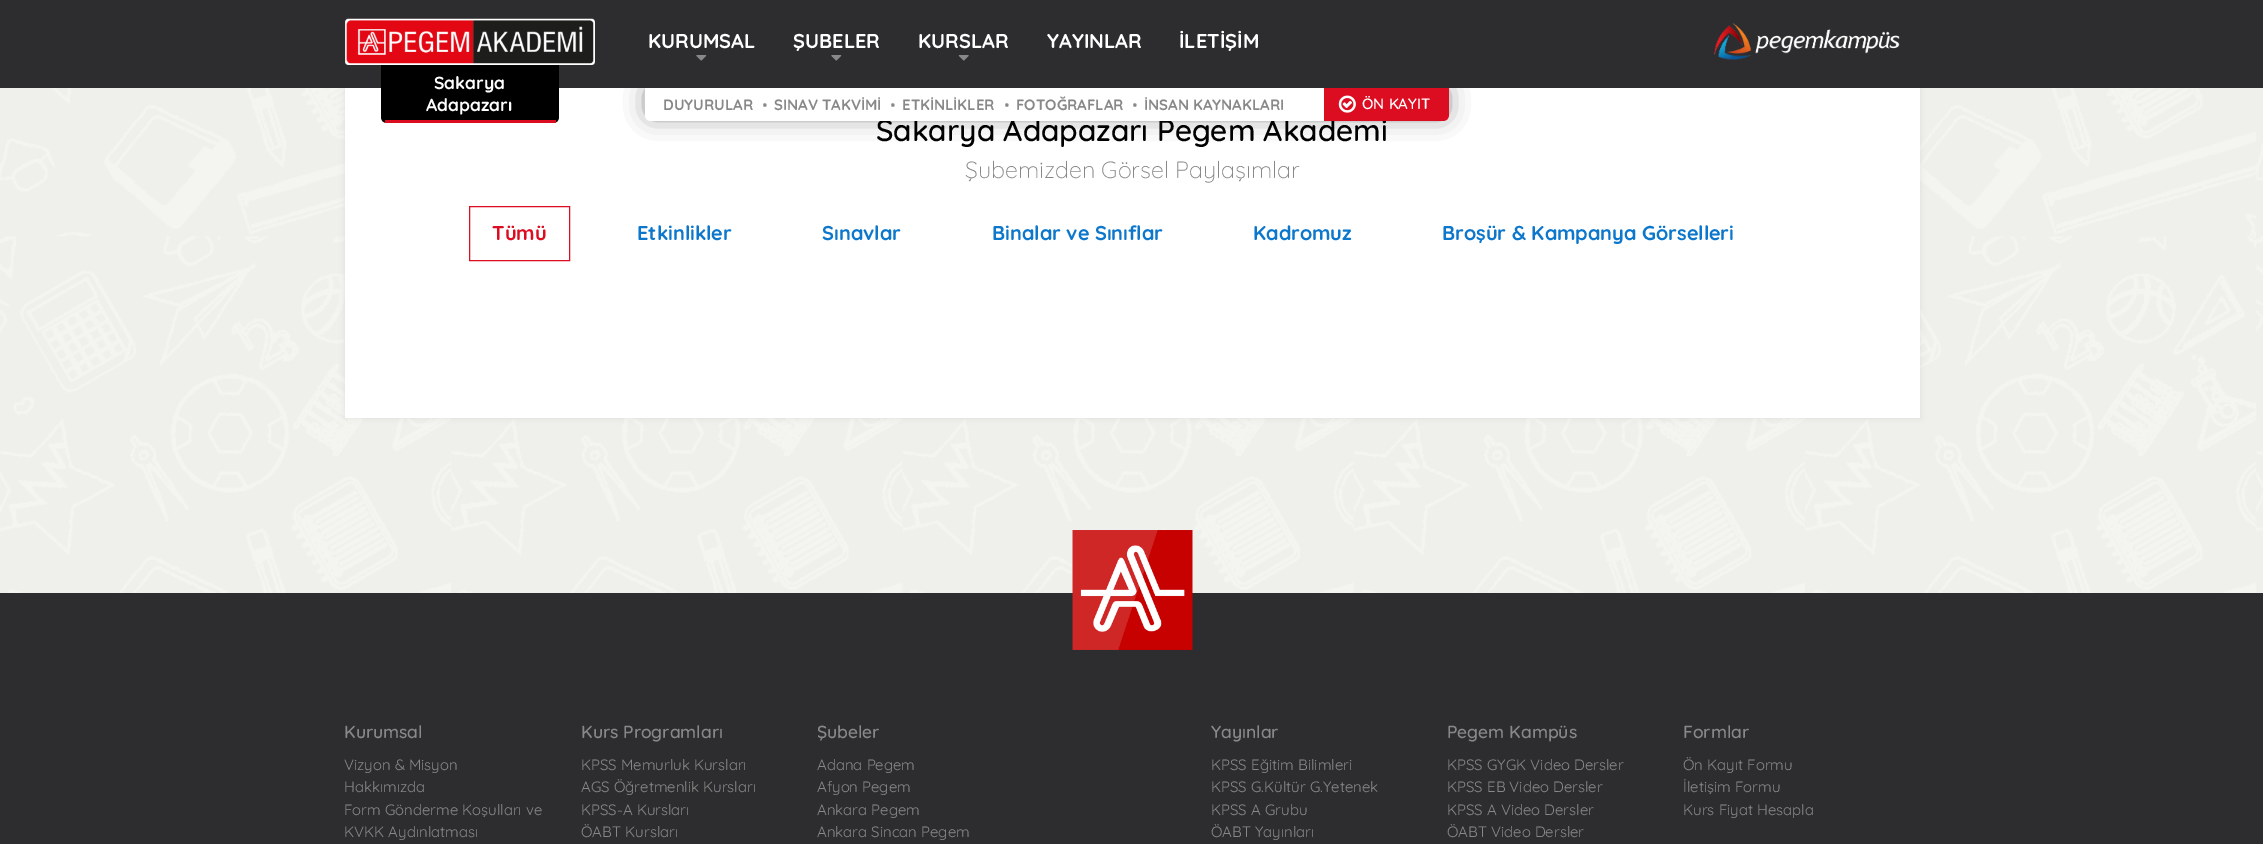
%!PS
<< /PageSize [2263 844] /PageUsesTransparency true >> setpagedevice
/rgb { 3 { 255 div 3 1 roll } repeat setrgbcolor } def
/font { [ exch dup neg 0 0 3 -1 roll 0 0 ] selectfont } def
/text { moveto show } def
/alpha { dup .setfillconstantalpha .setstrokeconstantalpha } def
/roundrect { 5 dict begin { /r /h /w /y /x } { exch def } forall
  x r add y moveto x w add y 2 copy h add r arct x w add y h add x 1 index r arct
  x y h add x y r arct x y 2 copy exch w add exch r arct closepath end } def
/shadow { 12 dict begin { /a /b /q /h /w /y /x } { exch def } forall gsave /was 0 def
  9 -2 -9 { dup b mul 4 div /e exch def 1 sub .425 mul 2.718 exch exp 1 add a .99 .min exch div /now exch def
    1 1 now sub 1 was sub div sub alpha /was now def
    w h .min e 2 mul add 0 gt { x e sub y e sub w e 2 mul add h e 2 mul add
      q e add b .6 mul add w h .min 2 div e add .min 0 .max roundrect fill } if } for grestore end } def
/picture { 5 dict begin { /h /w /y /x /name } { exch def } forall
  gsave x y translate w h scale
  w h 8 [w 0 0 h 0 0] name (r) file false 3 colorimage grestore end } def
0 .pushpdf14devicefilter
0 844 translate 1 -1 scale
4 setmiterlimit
255 255 255 rgb
0 0 2263 844 rectfill
(img_01.rgb) 0 88 2263 505 picture
0 0 0 rgb
345 35 1575 383 0 3 0.07 shadow
45 45 47 rgb
0 0 2263 88 rectfill
255 255 255 rgb
345 88 1575 330 rectfill
45 45 47 rgb
651 91 792 22 0 12.5 0.8 shadow
(img_02.rgb) 696 55 11 6 picture
(img_02.rgb) 831 55 11 6 picture
(img_03.rgb) 958 55 11 6 picture
(img_04.rgb) 1714 23 186 37 picture
(img_05.rgb) 345 18 250 47 picture
0 0 0 rgb
381 65 moveto 178 0 rlineto 0 52 rlineto 0 3.5 -2.5 6 -6 6 rcurveto -166 0 rlineto -3.5 0 -6 -2.5 -6 -6 rcurveto closepath fill
220 13 33 rgb
385 120 171 3 rectfill
469.5 206.5 100 54 rectstroke
45 45 47 rgb
0 593 2263 251 rectfill
(img_07.rgb) 1072 530 121 120 picture
/Quicksand-Bold 20 font
255 255 255 rgb
(KURUMSAL) 648 48 text
(ŞUBELER) 793 48 text
(KURSLAR) 918 48 text
(YAYINLAR) 1047 48 text
(İLETİŞİM) 1179 48 text
/Quicksand-Bold 17.5 font
(Sakarya) 434 89 text
(Adapazarı) 426 111 text
/Quicksand-Medium 30 font
0 0 0 rgb
(Sakarya Adapazarı Pegem Akademi) 876 141 text
255 255 255 rgb
645 88 moveto 804 0 rlineto 0 27 rlineto 0 3.5 -2.5 6 -6 6 rcurveto -792 0 rlineto -3.5 0 -6 -2.5 -6 -6 rcurveto closepath fill
/Quicksand-Bold 26 font
136 136 136 rgb
(·) 1132 113 text
(·) 1004 113 text
(·) 890 113 text
(·) 762 113 text
220 13 33 rgb
1324 88 moveto 125 0 rlineto 0 27 rlineto 0 3.5 -2.5 6 -6 6 rcurveto -119 0 rlineto closepath fill
/Quicksand-Medium 15 font
255 255 255 rgb
(ÖN KAYIT) 1362 109 text
(img_06.rgb) 1338 95 18 18 picture
/Quicksand-Bold 15 font
136 136 136 rgb
(İNSAN KAYNAKLARI) 1144 110 text
(FOTOĞRAFLAR) 1016 110 text
(ETKİNLİKLER) 902 110 text
(SINAV TAKVİMİ) 774 110 text
(DUYURULAR) 663 110 text
/Quicksand-Light 23.4 font
(Şubemizden Görsel Paylaşımlar) 965 178 text
/Quicksand-Bold 20 font
220 13 33 rgb
(Tümü) 492 240 text
13 119 204 rgb
(Etkinlikler) 637 240 text
(Sınavlar) 822 240 text
(Binalar ve Sınıflar) 992 240 text
(Kadromuz) 1253 240 text
(Broşür & Kampanya Görselleri) 1442 240 text
/Quicksand-Medium 17.5 font
136 136 136 rgb
(Kurumsal) 344 738 text
/Quicksand-Regular 15 font
(Vizyon & Misyon) 344 770 text
(Hakkımızda) 344 792 text
(Form Gönderme Koşulları ve) 344 815 text
(KVKK Aydınlatması) 344 837 text
/Quicksand-Medium 17.5 font
(Kurs Programları) 581 738 text
/Quicksand-Regular 15 font
(KPSS Memurluk Kursları) 581 770 text
(AGS Öğretmenlik Kursları) 581 792 text
(KPSS-A Kursları) 581 815 text
(ÖABT Kursları) 581 837 text
gsave
818 713 236 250 rectclip
/Quicksand-Medium 17.5 font
(Şubeler) 817 738 text
grestore
(Adana Pegem) 817 770 text
(Afyon Pegem) 817 792 text
(Ankara Pegem) 817 815 text
(Ankara Sincan Pegem) 817 837 text
/Quicksand-Medium 17.5 font
(Yayınlar) 1211 738 text
/Quicksand-Regular 15 font
(KPSS Eğitim Bilimleri) 1211 770 text
(KPSS G.Kültür G.Yetenek) 1211 792 text
(KPSS A Grubu) 1211 815 text
(ÖABT Yayınları) 1211 837 text
/Quicksand-Medium 17.5 font
(Pegem Kampüs) 1447 738 text
/Quicksand-Regular 15 font
(KPSS GYGK Video Dersler) 1447 770 text
(KPSS EB Video Dersler) 1447 792 text
(KPSS A Video Dersler) 1447 815 text
(ÖABT Video Dersler) 1447 837 text
/Quicksand-Medium 17.5 font
(Formlar) 1683 738 text
/Quicksand-Regular 15 font
(Ön Kayıt Formu) 1683 770 text
(İletişim Formu) 1683 792 text
(Kurs Fiyat Hesapla) 1683 815 text
.poppdf14devicefilter showpage
